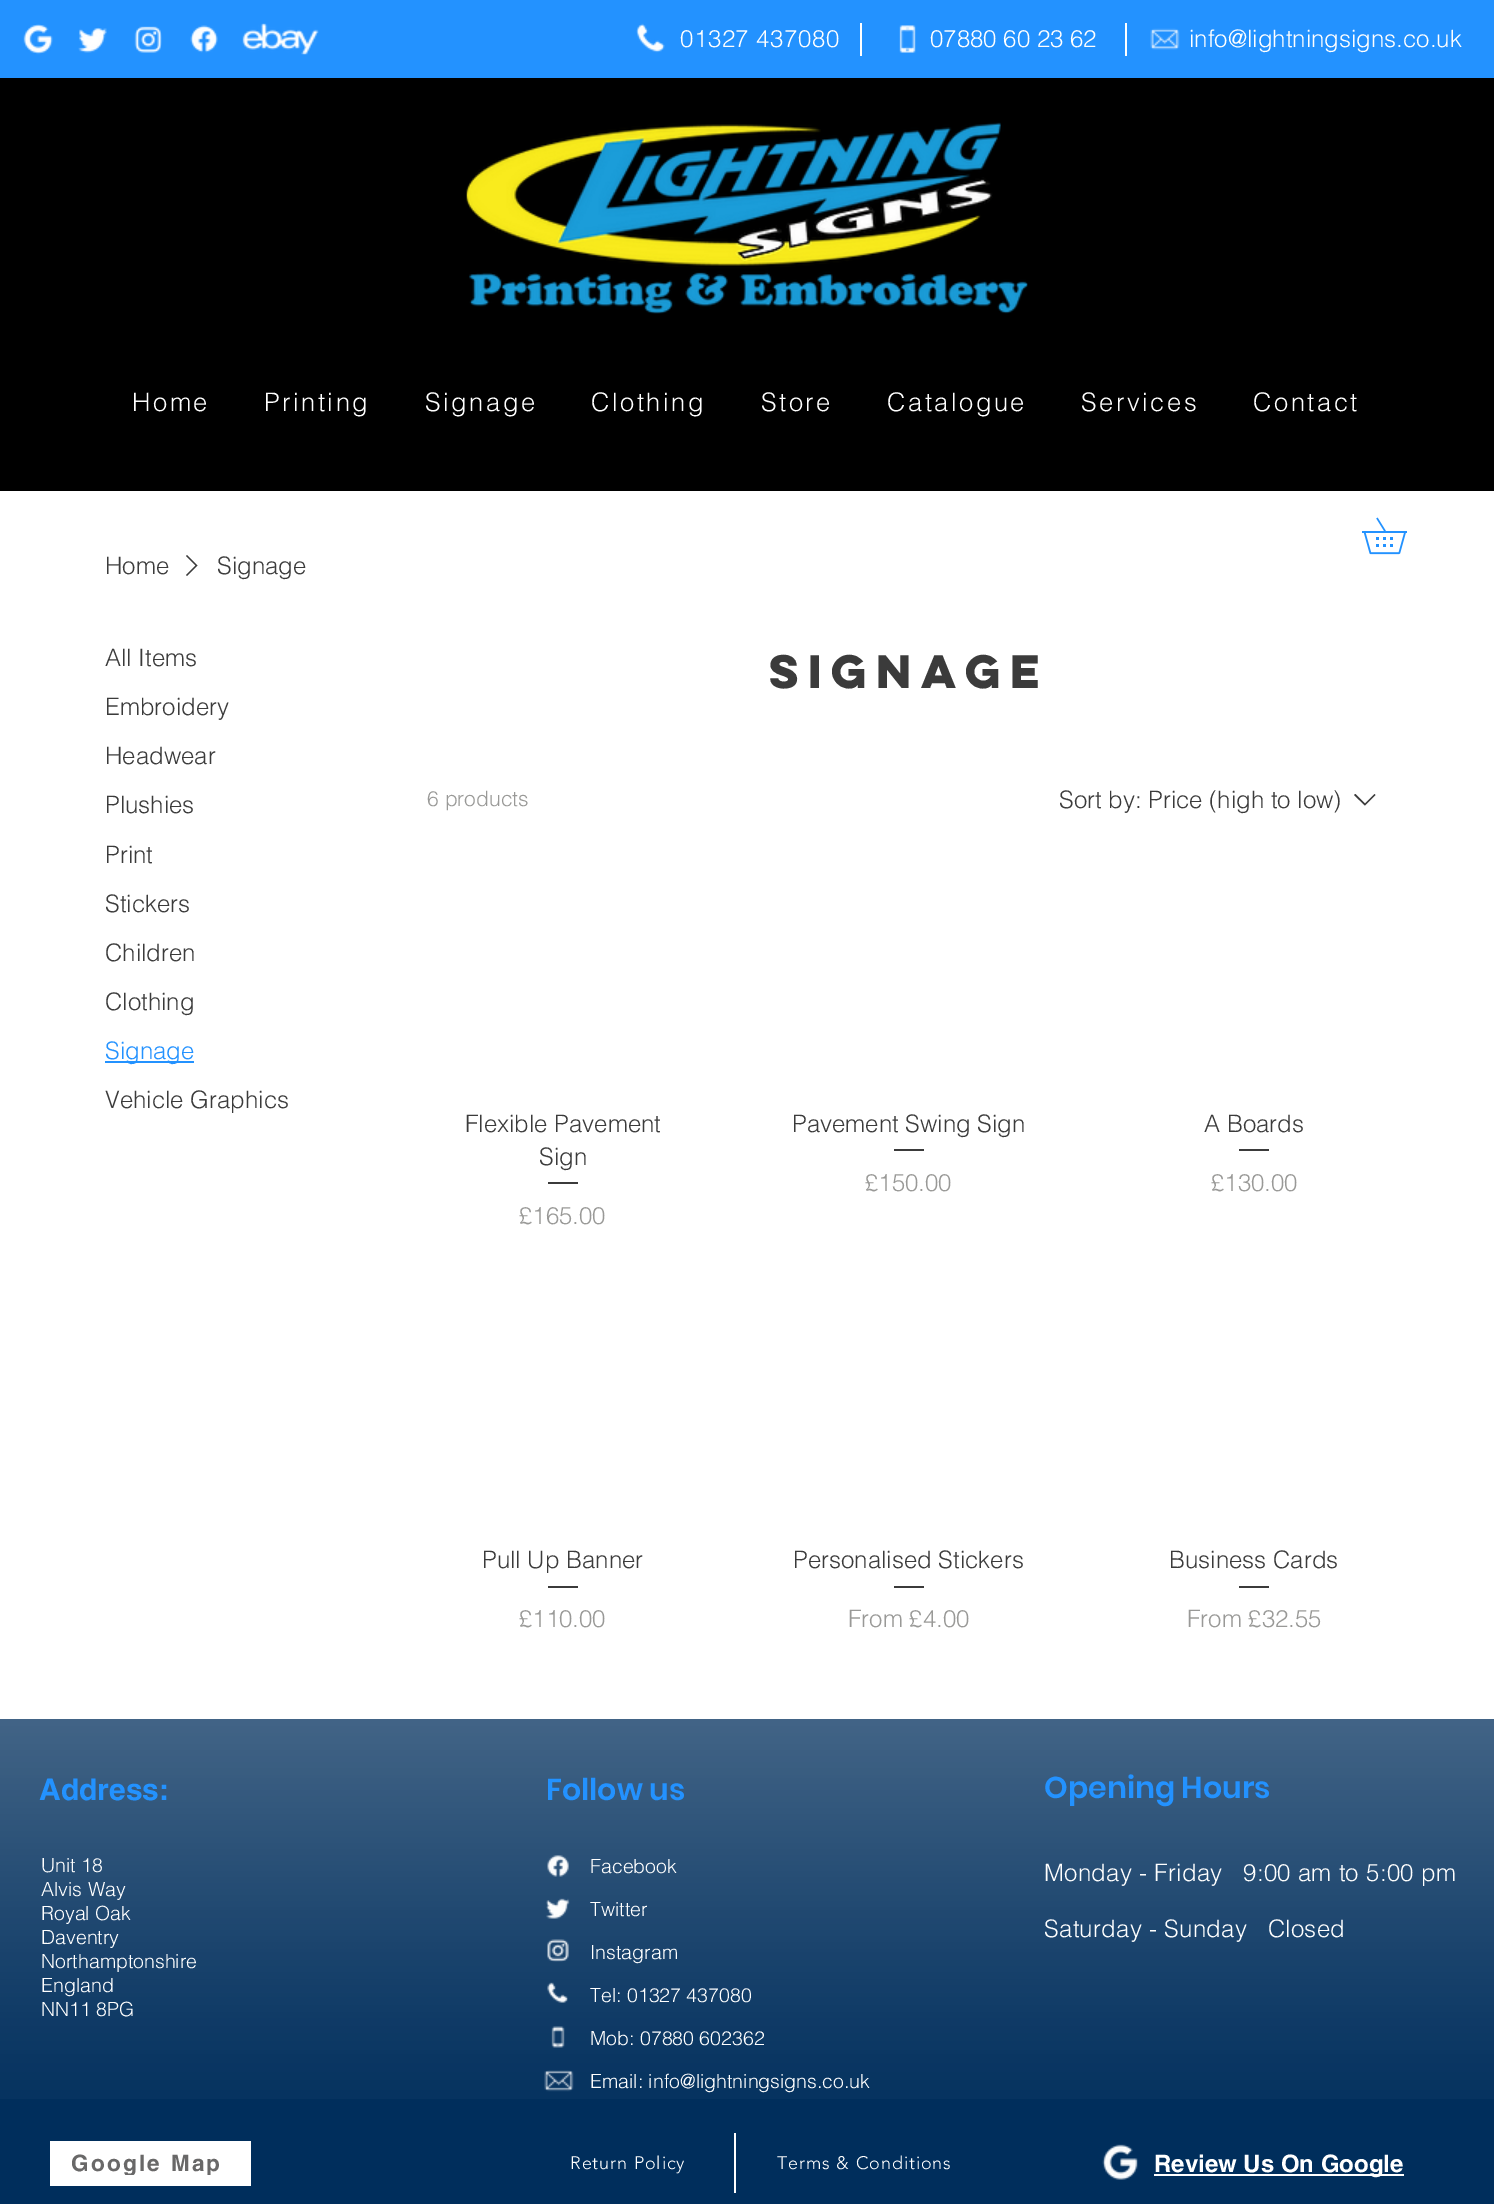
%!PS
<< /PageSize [1494 2204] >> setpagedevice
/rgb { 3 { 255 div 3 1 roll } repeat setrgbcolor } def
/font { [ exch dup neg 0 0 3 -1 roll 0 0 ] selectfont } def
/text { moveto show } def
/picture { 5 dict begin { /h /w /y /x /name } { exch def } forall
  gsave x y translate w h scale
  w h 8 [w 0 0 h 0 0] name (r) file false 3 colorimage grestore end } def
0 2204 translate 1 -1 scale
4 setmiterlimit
255 255 255 rgb
0 0 1494 2204 rectfill
35 146 255 rgb
0 0 1494 78 rectfill
(img_01.rgb) 242 23 77 32 picture
(img_02.rgb) 23 24 30 31 picture
(img_03.rgb) 78 27 29 26 picture
(img_04.rgb) 134 26 28 27 picture
(img_05.rgb) 190 25 28 28 picture
(img_06.rgb) 636 23 29 30 picture
255 255 255 rgb
860 23 2 33 rectfill
(img_07.rgb) 899 25 17 28 picture
1125 23 2 33 rectfill
(img_08.rgb) 1150 28 30 22 picture
0 0 0 rgb
0 78 1494 413 rectfill
(img_09.rgb) 466 122 562 192 picture
(img_10.rgb) 1362 517 45 38 picture
59 59 59 rgb
187 555 moveto 10.5 10.5 rlineto -10.5 10.5 rlineto -1 -1 rlineto 9.5 -9.5 rlineto -9.5 -9.5 rlineto closepath eofill
35 146 255 rgb
105 1061 89 2 rectfill
59 59 59 rgb
1374.5 794 moveto 1 1 rlineto -10.5 10.5 rlineto -11 -10.5 rlineto 1.5 -1 rlineto 9.5 9.5 rlineto closepath eofill
548 1182 30 2 rectfill
894 1149 30 2 rectfill
1239 1149 30 2 rectfill
548 1586 30 2 rectfill
894 1586 30 2 rectfill
1239 1586 30 2 rectfill
0 46 92 rgb
0 1719 1494 485 rectfill
(img_11.rgb) 0 1719 1494 380 picture
(img_12.rgb) 547 1855 22 22 picture
(img_13.rgb) 546 1898 24 21 picture
(img_14.rgb) 547 1939 22 23 picture
(img_15.rgb) 547 1982 21 21 picture
(img_16.rgb) 551 2026 14 22 picture
(img_17.rgb) 544 2070 30 22 picture
255 255 255 rgb
50 2141 201 45 rectfill
734 2133 2 60 rectfill
(img_18.rgb) 1102 2144 36 36 picture
1154 2174 250 2 rectfill
/helvetica-Light 24 font
680 47 moveto 0.5 0 (01327 437080) ashow
(07880 60 23 62) 930 47 text
(info@lightningsigns.co.uk) 1189 47 text
/helvetica-Light 25.5 font
132 411 moveto 2.5 0 (Home) ashow
264 411 moveto 2.5 0 (Printing) ashow
425 411 moveto 2.5 0 (Signage) ashow
591 411 moveto 2.5 0 (Clothing) ashow
761 411 moveto 2.5 0 (Store) ashow
887 411 moveto 2.5 0 (Catalogue) ashow
1081 411 moveto 2.5 0 (Services) ashow
1253 411 moveto 2.5 0 (Contact) ashow
/helvetica-Light 24 font
59 59 59 rgb
(Home) 105 574 text
(Signage) 217 574 text
(All Items) 105 666 text
(Embroidery) 105 715 text
(Headwear) 105 764 text
(Plushies) 105 813 text
(Print) 105 863 text
(Stickers) 105 912 text
(Children) 105 961 text
(Clothing) 105 1010 text
35 146 255 rgb
(Signage) 105 1059 text
59 59 59 rgb
(Vehicle Graphics) 105 1108 text
/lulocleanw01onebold-Bold 42 font
(Signage) 769 688 text
/helvetica-Light 21 font
153 153 151 rgb
(6 products) 427 806 text
/helvetica-Light 24 font
59 59 59 rgb
(Sort by:) 1059 808 text
(Price \(high to low\)) 1148 808 text
(Flexible Pavement) 465 1132 text
(Sign) 539 1165 text
153 153 151 rgb
(£165.00) 519 1224 text
59 59 59 rgb
(Pavement Swing Sign) 792 1132 text
153 153 151 rgb
(£150.00) 865 1191 text
59 59 59 rgb
(A Boards) 1204 1132 text
153 153 151 rgb
(£130.00) 1211 1191 text
59 59 59 rgb
(Pull Up Banner) 482 1568 text
153 153 151 rgb
(£110.00) 519 1627 text
59 59 59 rgb
(Personalised Stickers) 793 1568 text
153 153 151 rgb
(From £4.00) 848 1627 text
59 59 59 rgb
(Business Cards) 1169 1568 text
153 153 151 rgb
(From £32.55) 1187 1627 text
/helvetica-Bold 30 font
35 146 255 rgb
(Address:) 39 1800 text
/Poppins-SemiBold 30 font
(Follow us) 546 1800 text
(Opening Hours) 1044 1798 text
/helvetica-Light 19.5 font
255 255 255 rgb
(Unit 18) 41 1872 text
(Alvis Way) 41 1896 text
(Royal Oak) 41 1920 text
(Daventry) 41 1944 text
(Northamptonshire) 41 1968 text
(England) 41 1992 text
(NN11 8PG) 41 2016 text
(Facebook) 590 1873 text
(Twitter) 590 1916 text
(Instagram) 590 1959 text
(Tel: 01327 437080) 590 2002 text
(Mob: 07880 602362) 590 2045 text
(Email: info@lightningsigns.co.uk) 590 2088 text
/helvetica-Light 24 font
1044 1881 moveto 0.25 0 (Monday - Friday   9:00 am to 5:00 pm) ashow
1044 1937 moveto 0.25 0 (Saturday - Sunday   Closed) ashow
gsave
72 2150 150 25 rectclip
/helvetica-Bold 22.5 font
105 104 104 rgb
71 2171 moveto 2.25 0 (Google Map) ashow
grestore
/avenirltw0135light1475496-Light 18 font
570 2169 moveto 0.9 0 (Return Policy) ashow
777 2169 moveto 0.9 0 (Terms & Conditions) ashow
/helvetica-Bold 24 font
(Review Us On Google) 1154 2172 text
showpage
